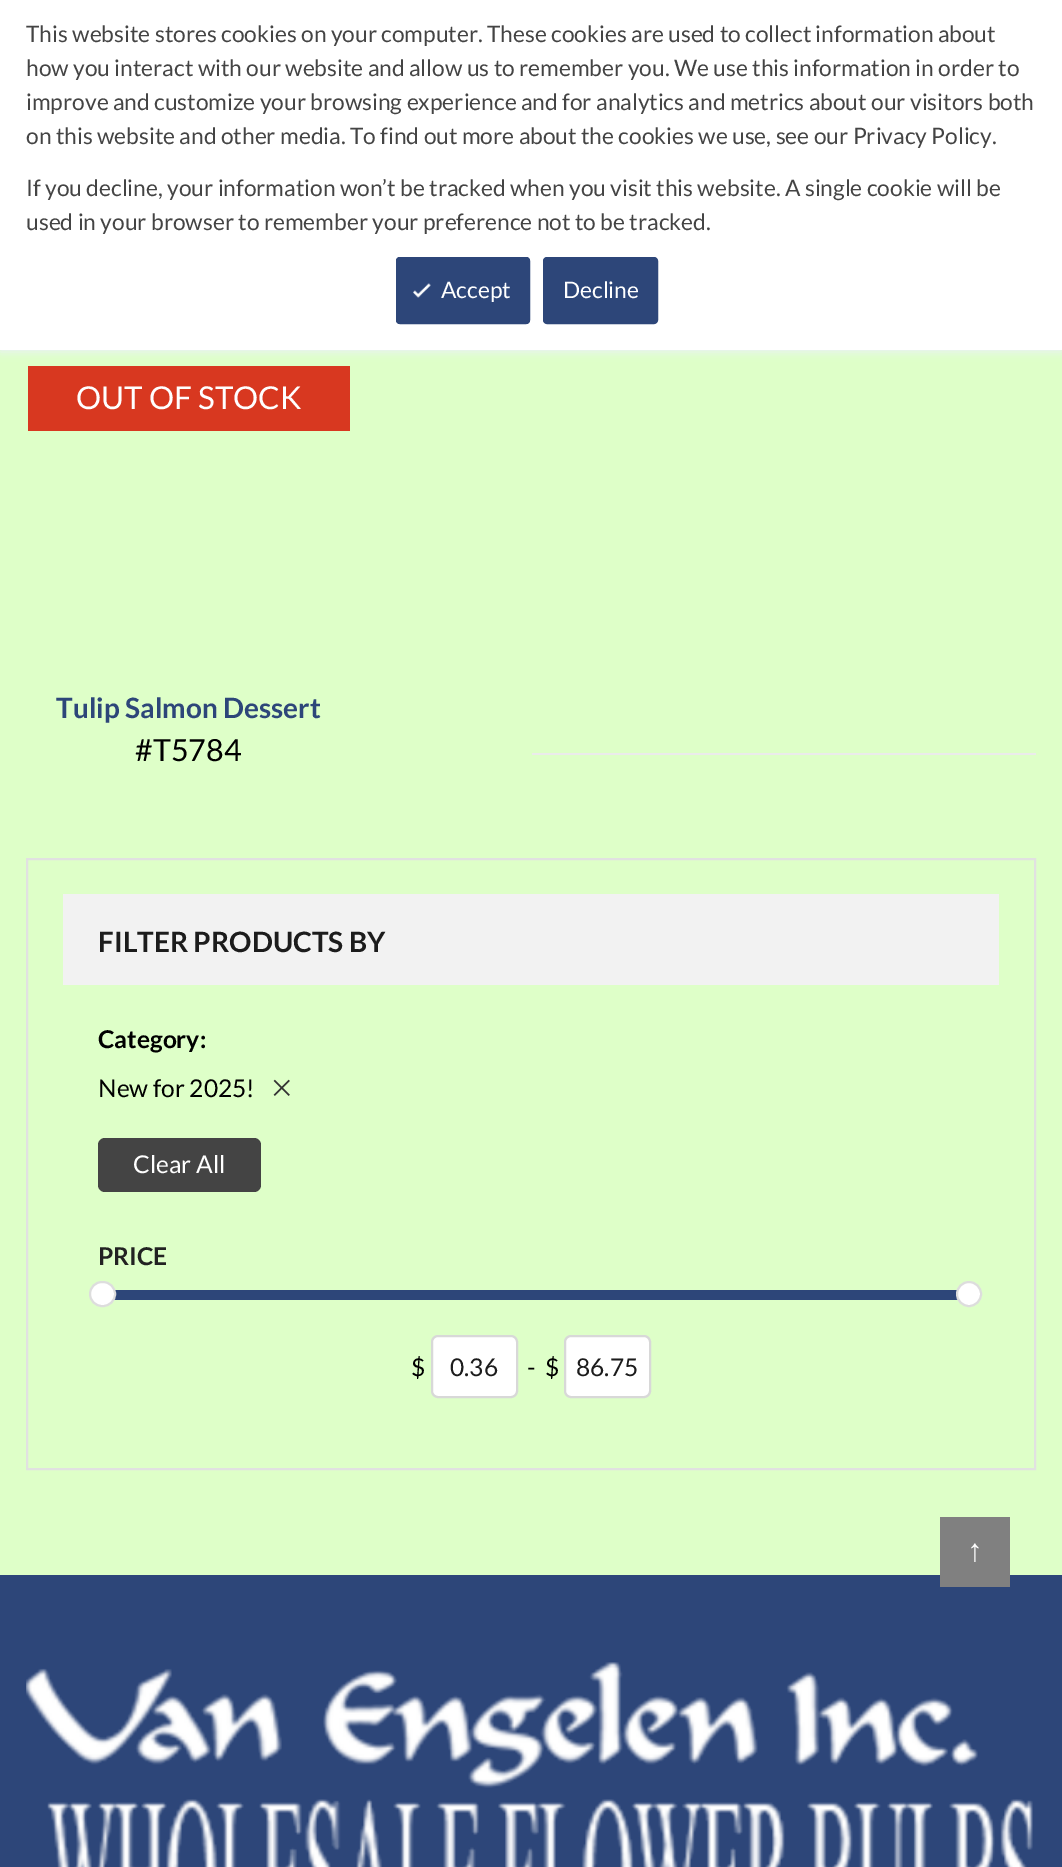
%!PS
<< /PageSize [1062 1867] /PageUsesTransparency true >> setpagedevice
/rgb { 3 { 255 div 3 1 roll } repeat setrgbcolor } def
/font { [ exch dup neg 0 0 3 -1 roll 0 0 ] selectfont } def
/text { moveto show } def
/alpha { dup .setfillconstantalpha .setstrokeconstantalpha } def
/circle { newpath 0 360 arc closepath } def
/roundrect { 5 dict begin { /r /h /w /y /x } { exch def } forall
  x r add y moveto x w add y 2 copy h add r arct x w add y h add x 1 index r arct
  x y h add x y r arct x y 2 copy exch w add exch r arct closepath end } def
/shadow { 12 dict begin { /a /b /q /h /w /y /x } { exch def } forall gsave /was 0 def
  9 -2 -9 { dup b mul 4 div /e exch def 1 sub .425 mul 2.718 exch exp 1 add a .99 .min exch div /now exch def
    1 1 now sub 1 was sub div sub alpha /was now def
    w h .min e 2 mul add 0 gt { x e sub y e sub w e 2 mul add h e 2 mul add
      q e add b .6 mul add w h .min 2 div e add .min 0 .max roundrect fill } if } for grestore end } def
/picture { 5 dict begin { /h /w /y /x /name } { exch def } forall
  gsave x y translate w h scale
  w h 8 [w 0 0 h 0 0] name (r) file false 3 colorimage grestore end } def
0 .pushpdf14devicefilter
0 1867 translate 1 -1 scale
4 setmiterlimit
222 255 200 rgb
0 0 1062 1867 rectfill
216 56 32 rgb
28 366 322 65 rectfill
234 240 246 rgb
0 2 1062 350 0 4.5 1 shadow
255 255 255 rgb
0 0 1062 350 rectfill
45 70 121 rgb
396 257 134 67 4 roundrect fill
(img_01.rgb) 413 283 18 15 picture
2 setlinewidth
397 258 132 65 3 roundrect stroke
544 258 113 65 3 roundrect gsave fill grestore
stroke
235 235 235 rgb
532 753 504 2 rectfill
225 225 225 rgb
27 859 1008 610 rectstroke
242 242 242 rgb
63 894 936 91 rectfill
(img_02.rgb) 273 1079 17 17 picture
68 68 68 rgb
98 1138 163 54 7 roundrect fill
45 70 121 rgb
114 1290 844 10 rectfill
255 255 255 rgb
90 1282 25 24 12 roundrect gsave fill grestore
221 221 221 rgb
stroke
255 255 255 rgb
969 1294 12 circle gsave fill grestore
221 221 221 rgb
stroke
255 255 255 rgb
432 1336 85 61 6 roundrect gsave fill grestore
216 216 216 rgb
stroke
255 255 255 rgb
565 1336 85 61 6 roundrect gsave fill grestore
216 216 216 rgb
stroke
45 70 121 rgb
0 1575 1062 292 rectfill
128 128 128 rgb
940 1517 70 70 rectfill
(img_03.rgb) 26 1662 1007 205 picture
/Lato-Regular 22.75 font
68 68 68 rgb
(This website stores cookies on your computer. These cookies are used to collect information about) 26 42 text
(how you interact with our website and allow us to remember you. We use this information in order to) 26 76 text
(improve and customize your browsing experience and for analytics and metrics about our visitors both) 26 110 text
(on this website and other media. To find out more about the cookies we use, see our Privacy Policy.) 26 144 text
(If you decline, your information won’t be tracked when you visit this website. A single cookie will be) 26 196 text
(used in your browser to remember your preference not to be tracked.) 26 230 text
255 255 255 rgb
(Accept) 441 298 text
(Decline) 563 298 text
/Lato-Regular 31.5 font
(OUT OF STOCK) 76 409 text
/Lato-Bold 28 font
45 70 121 rgb
(Tulip Salmon Dessert) 56 718 text
/Lato-Regular 30.5 font
0 0 0 rgb
(#T5784) 135 761 text
/Lato-Bold 28 font
28 28 28 rgb
(FILTER PRODUCTS BY) 98 952 text
/Lato-Bold 24.5 font
0 0 0 rgb
(Category:) 98 1048 text
/Lato-Regular 24.5 font
(New for 2025!) 98 1097 text
255 255 255 rgb
(Clear All) 133 1173 text
/Lato-Bold 24.5 font
34 34 34 rgb
(PRICE) 98 1265 text
/Lato-Regular 24.5 font
0 0 0 rgb
($) 411 1376 text
28 28 28 rgb
(0.36) 450 1376 text
0 0 0 rgb
(-) 527 1376 text
($) 545 1376 text
28 28 28 rgb
(86.75) 576 1376 text
/LiberationSerif-Regular 31.5 font
255 255 255 rgb
(↑) 967 1561 text
.poppdf14devicefilter showpage
